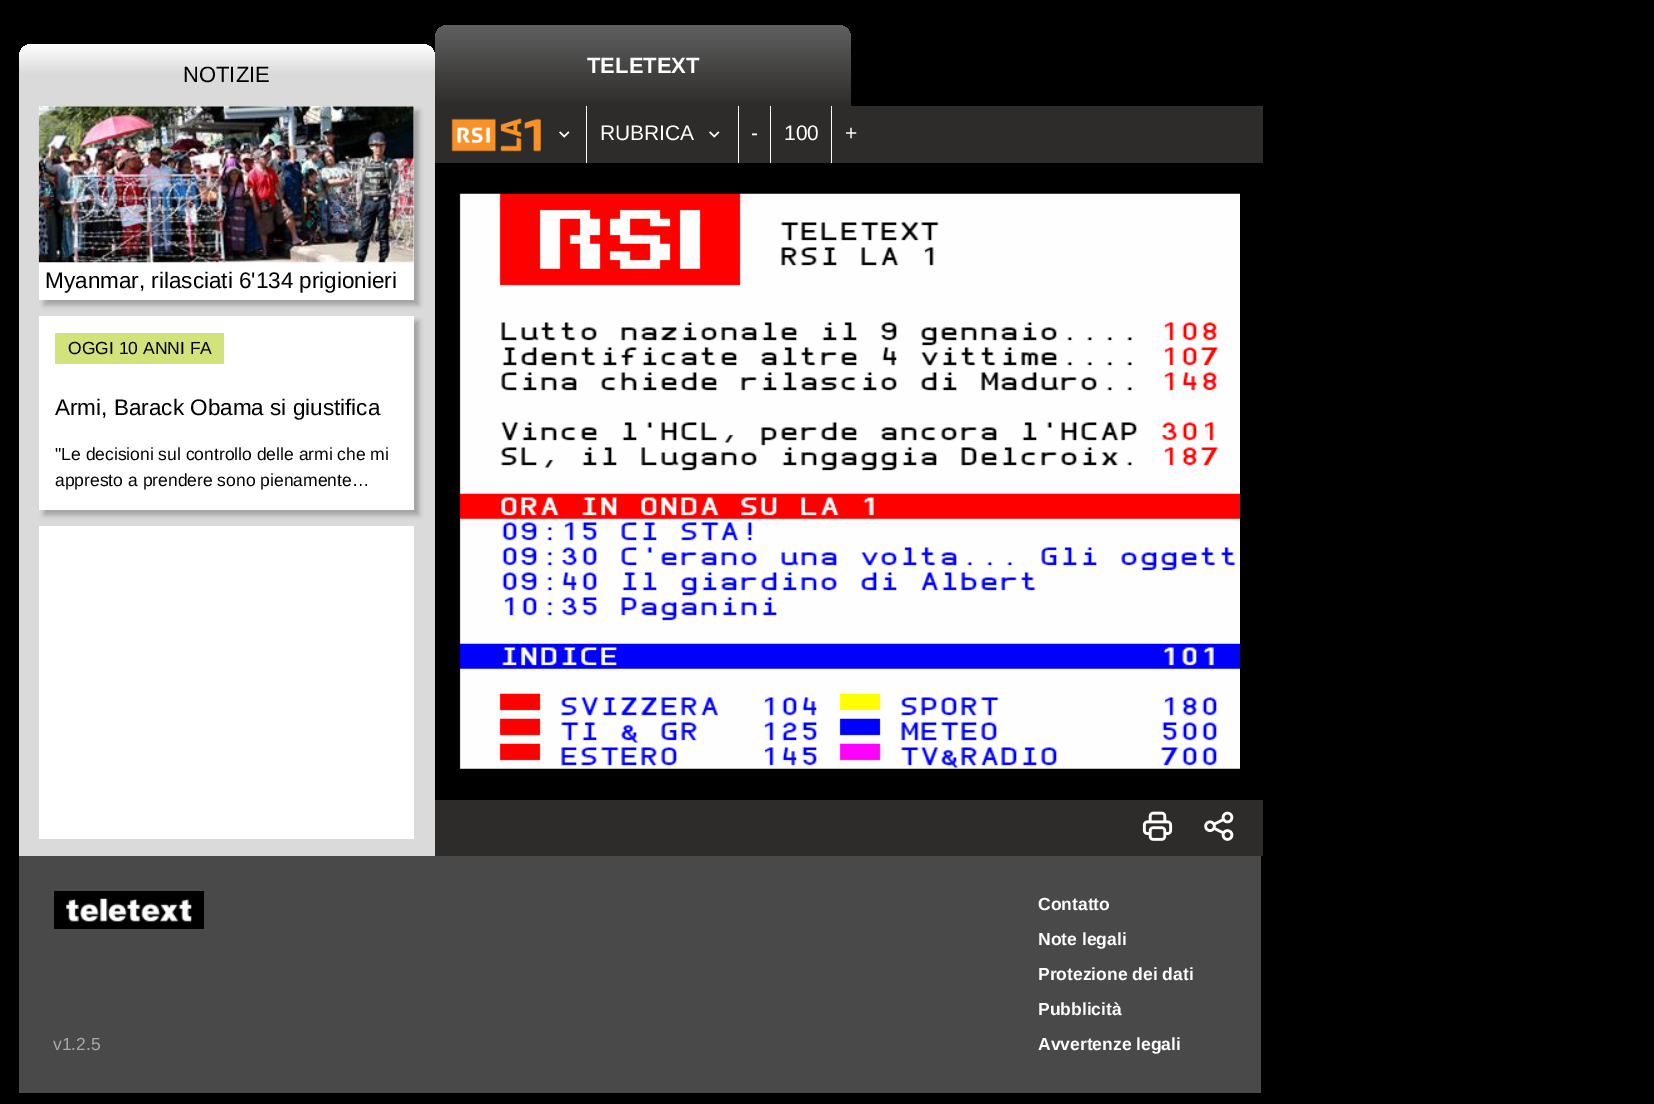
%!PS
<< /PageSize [1654 1104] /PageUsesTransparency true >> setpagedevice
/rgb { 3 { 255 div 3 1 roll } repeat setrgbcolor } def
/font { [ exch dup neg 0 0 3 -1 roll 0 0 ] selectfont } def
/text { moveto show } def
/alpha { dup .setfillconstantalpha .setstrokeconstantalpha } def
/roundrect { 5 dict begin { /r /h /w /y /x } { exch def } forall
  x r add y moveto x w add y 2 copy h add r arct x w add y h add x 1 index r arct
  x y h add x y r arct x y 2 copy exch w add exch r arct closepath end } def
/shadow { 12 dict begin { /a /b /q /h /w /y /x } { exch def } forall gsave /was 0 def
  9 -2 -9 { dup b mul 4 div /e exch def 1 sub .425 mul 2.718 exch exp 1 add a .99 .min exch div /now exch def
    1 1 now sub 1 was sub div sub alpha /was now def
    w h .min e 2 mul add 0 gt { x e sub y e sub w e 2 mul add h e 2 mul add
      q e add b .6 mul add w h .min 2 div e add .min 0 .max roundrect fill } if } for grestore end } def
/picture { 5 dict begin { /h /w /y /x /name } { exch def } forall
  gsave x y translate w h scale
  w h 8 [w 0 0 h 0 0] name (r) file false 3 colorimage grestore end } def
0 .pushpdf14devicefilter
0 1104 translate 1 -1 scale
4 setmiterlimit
0 0 0 rgb
0 0 1654 1104 rectfill
gsave 32 44 moveto 390 0 rlineto 7 0 13 6 13 13 rcurveto 0 49 rlineto -416 0 rlineto 0 -49 rlineto 0 -7 6 -13 13 -13 rcurveto closepath clip newpath
<< /ShadingType 2 /ColorSpace /DeviceRGB /Coords [227 106 227 44] /Extend [true true] /Function << /FunctionType 3 /Domain [0 1] /Functions [<< /FunctionType 2 /Domain [0 1] /C0 [0.855 0.855 0.855] /C1 [0.855 0.855 0.855] /N 1 >> << /FunctionType 2 /Domain [0 1] /C0 [0.855 0.855 0.855] /C1 [1 1 1] /N 1 >>] /Bounds [0.51] /Encode [0 1 0 1] >> >> shfill grestore
gsave 448 25 moveto 390 0 rlineto 7 0 13 6 13 13 rcurveto 0 68 rlineto -416 0 rlineto 0 -68 rlineto 0 -7 6 -13 13 -13 rcurveto closepath clip newpath
<< /ShadingType 2 /ColorSpace /DeviceRGB /Coords [643 106 643 25] /Extend [true true] /Function << /FunctionType 2 /Domain [0 1] /C0 [0.176 0.173 0.165] /C1 [0.376 0.376 0.376] /N 1 >> >> shfill grestore
45 44 42 rgb
435 106 828 57 rectfill
255 255 255 rgb
586 106 1 57 rectfill
(img_01.rgb) 451 118 90 34 picture
(img_02.rgb) 559 131 11 7 picture
738 106 1 57 rectfill
(img_02.rgb) 709 131 11 7 picture
770 106 1 57 rectfill
831 106 1 57 rectfill
(img_03.rgb) 459 193 781 576 picture
45 44 42 rgb
435 800 828 56 rectfill
(img_04.rgb) 1142 811 31 30 picture
(img_05.rgb) 1204 811 30 30 picture
218 218 218 rgb
19 106 416 750 rectfill
0 0 0 rgb
44 111 375 194 0 2.5 0.25 shadow
255 255 255 rgb
39 106 375 194 rectfill
(img_06.rgb) 38 106 376 157 picture
0 0 0 rgb
44 321 375 194 0 2.5 0.25 shadow
255 255 255 rgb
39 316 375 194 rectfill
210 227 124 rgb
55 333 169 31 rectfill
255 255 255 rgb
39 526 375 313 rectfill
73 73 73 rgb
19 856 1242 237 rectfill
0 0 0 rgb
54 891 150 38 rectfill
(img_07.rgb) 66 898 126 24 picture
/LiberationSans-Regular 22 font
(NOTIZIE) 183 82 text
/LiberationSans-Bold 22 font
255 255 255 rgb
(TELETEXT) 587 73 text
/LiberationSans-Regular 21 font
(RUBRICA) 600 140 text
(-) 751 140 text
(100) 784 140 text
(+) 845 140 text
/LiberationSans-Regular 22.5 font
0 0 0 rgb
(Myanmar, rilasciati 6'134 prigionieri) 45 288 text
/LiberationSans-Regular 17.5 font
(OGGI 10 ANNI FA) 68 354 text
/LiberationSans-Regular 22.5 font
(Armi, Barack Obama si giustifica) 55 415 text
/LiberationSans-Regular 17.5 font
("Le decisioni sul controllo delle armi che mi) 55 460 text
(appresto a prendere sono pienamente…) 55 486 text
169 169 169 rgb
(v1.2.5) 53 1050 text
/LiberationSans-Bold 17.5 font
255 255 255 rgb
(Contatto) 1038 910 text
(Note legali) 1038 945 text
(Protezione dei dati) 1038 980 text
(Pubblicità) 1038 1015 text
(Avvertenze legali) 1038 1050 text
.poppdf14devicefilter showpage
